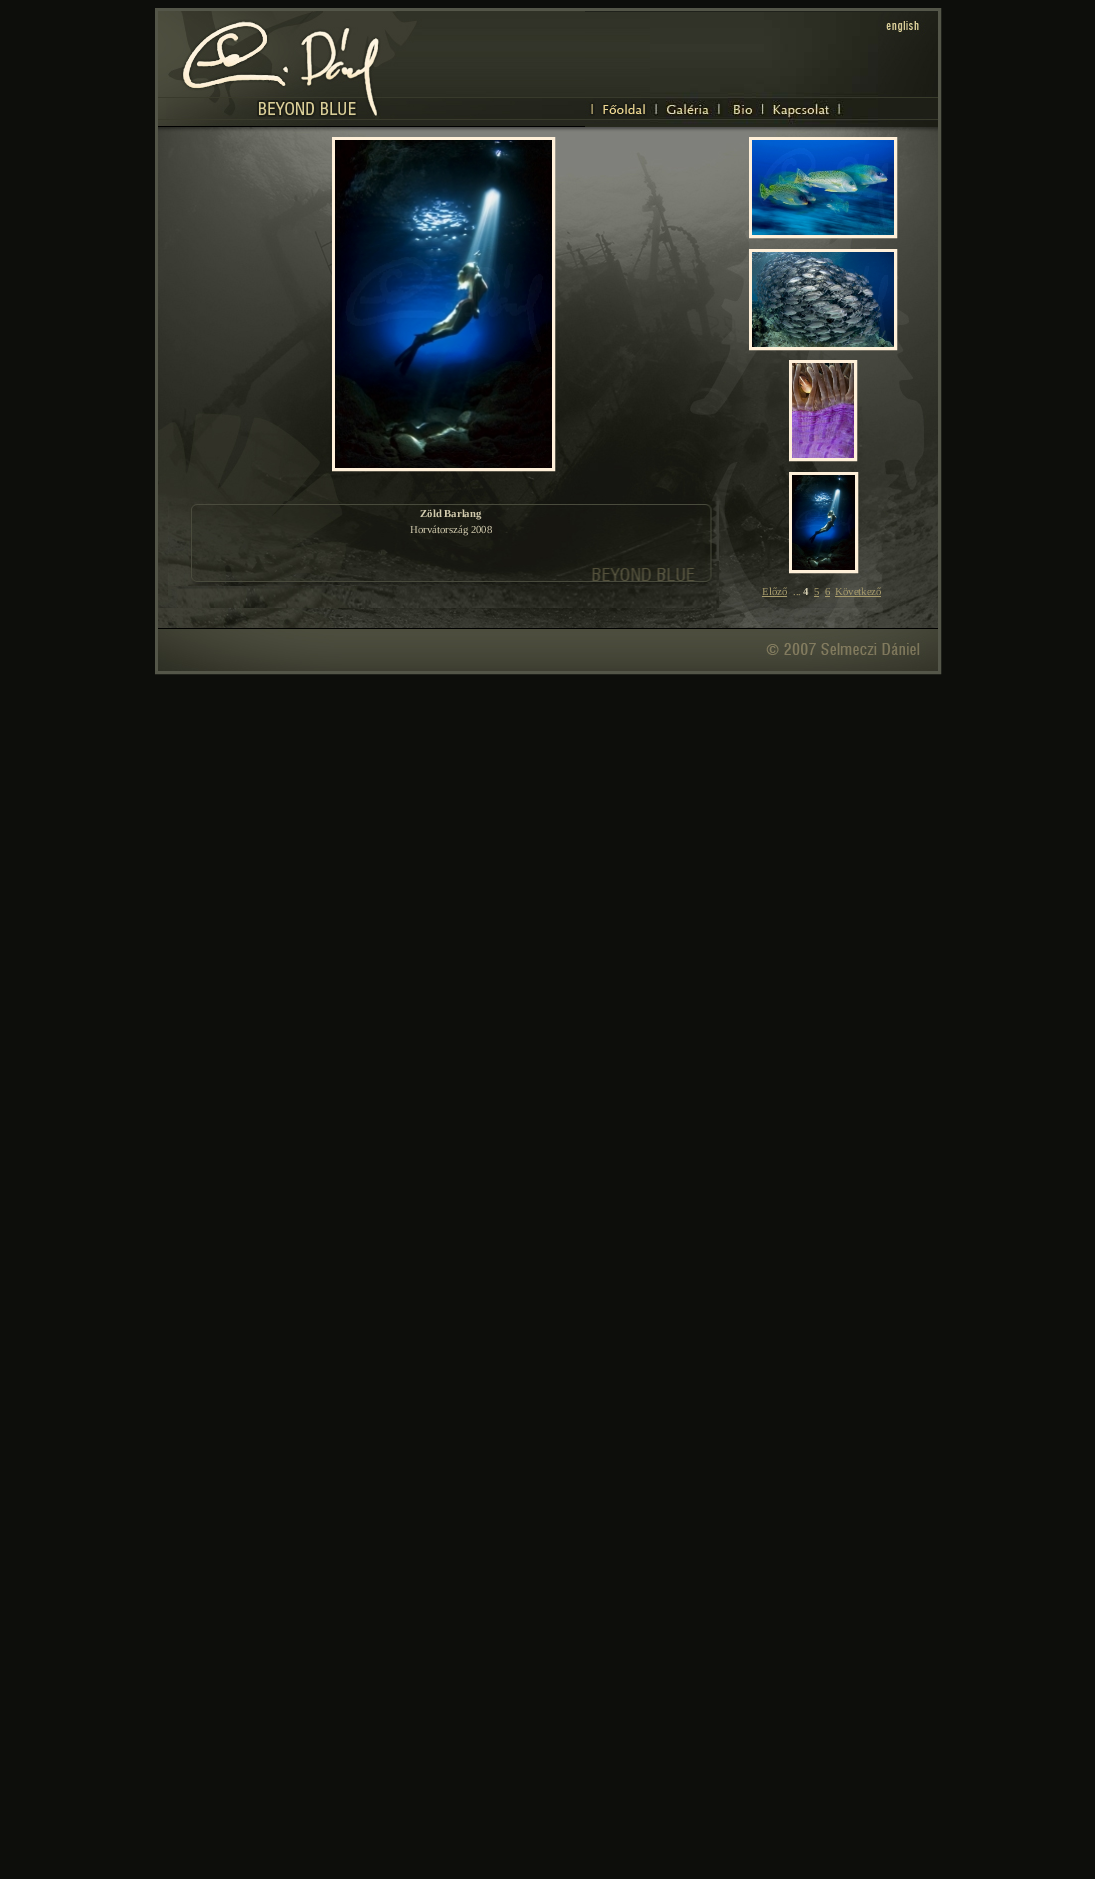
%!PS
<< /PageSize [1095 1879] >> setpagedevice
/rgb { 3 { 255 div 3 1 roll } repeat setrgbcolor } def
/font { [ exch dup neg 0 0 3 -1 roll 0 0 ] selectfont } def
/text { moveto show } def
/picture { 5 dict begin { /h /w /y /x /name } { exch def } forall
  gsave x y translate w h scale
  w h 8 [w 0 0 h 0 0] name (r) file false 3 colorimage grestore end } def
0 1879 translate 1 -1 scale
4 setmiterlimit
13 14 11 rgb
0 0 1095 1879 rectfill
84 86 73 rgb
3 setlinewidth
156.5 9.5 783 663 rectstroke
(img_01.rgb) 158 11 427 116 picture
(img_02.rgb) 585 12 65 115 picture
(img_03.rgb) 650 12 62 115 picture
(img_04.rgb) 712 12 44 115 picture
(img_05.rgb) 756 12 122 115 picture
(img_06.rgb) 878 12 60 115 picture
(img_07.rgb) 158 127 780 501 picture
(img_08.rgb) 168 501 551 107 picture
255 240 217 rgb
333.5 138.5 220 331 rectstroke
(img_09.rgb) 335 140 217 328 picture
750.5 138.5 145 98 rectstroke
(img_10.rgb) 752 140 142 95 picture
750.5 250.5 145 98 rectstroke
(img_11.rgb) 752 252 142 95 picture
790.5 361.5 65 98 rectstroke
(img_12.rgb) 792 363 62 95 picture
790.5 473.5 66 98 rectstroke
(img_13.rgb) 792 475 63 95 picture
168 156 108 rgb
762 596 25 1 rectfill
814 596 5 1 rectfill
825 596 5 1 rectfill
835 596 46 1 rectfill
(img_14.rgb) 158 628 780 43 picture
/LiberationSerif-Bold 10.75 font
211 204 175 rgb
(Zöld Barlang) 420 517 text
/LiberationSerif-Regular 10.75 font
(Horvátország 2008) 410 533 text
168 156 108 rgb
(Előző) 762 595 text
(...) 793 595 text
/LiberationSerif-Bold 10.75 font
211 204 175 rgb
(4) 803 595 text
/LiberationSerif-Regular 10.75 font
168 156 108 rgb
(5) 814 595 text
(6) 825 595 text
(Következő) 835 595 text
showpage
